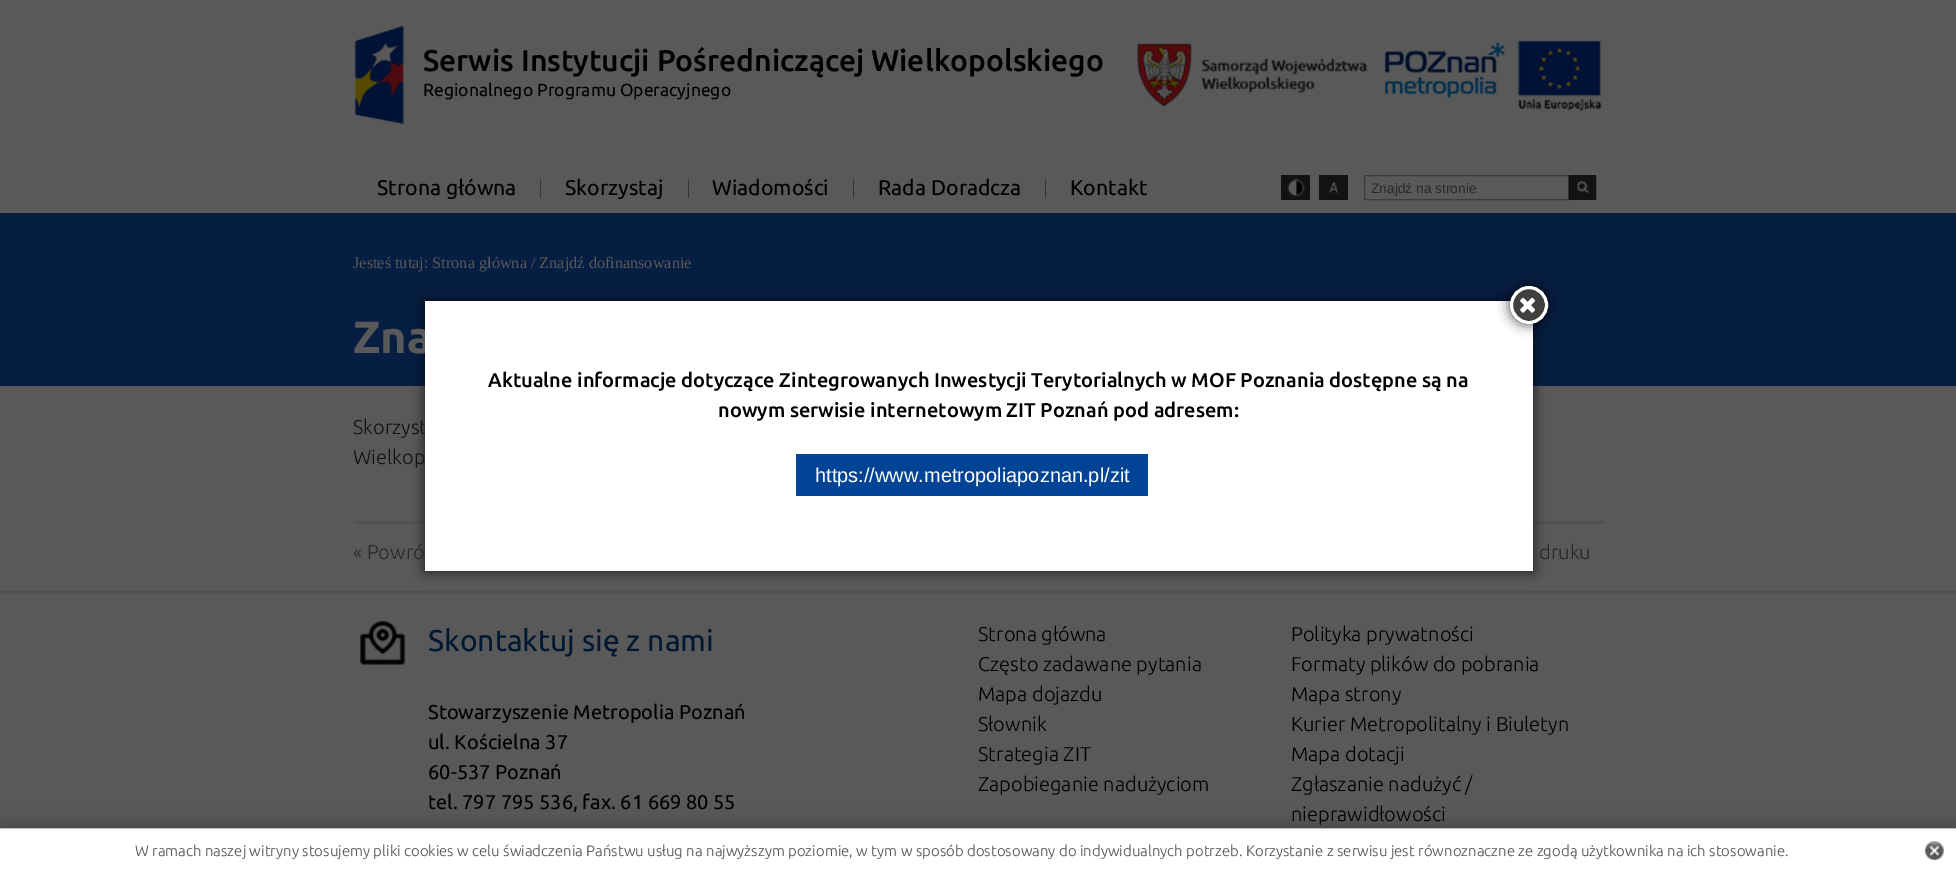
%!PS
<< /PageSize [1956 872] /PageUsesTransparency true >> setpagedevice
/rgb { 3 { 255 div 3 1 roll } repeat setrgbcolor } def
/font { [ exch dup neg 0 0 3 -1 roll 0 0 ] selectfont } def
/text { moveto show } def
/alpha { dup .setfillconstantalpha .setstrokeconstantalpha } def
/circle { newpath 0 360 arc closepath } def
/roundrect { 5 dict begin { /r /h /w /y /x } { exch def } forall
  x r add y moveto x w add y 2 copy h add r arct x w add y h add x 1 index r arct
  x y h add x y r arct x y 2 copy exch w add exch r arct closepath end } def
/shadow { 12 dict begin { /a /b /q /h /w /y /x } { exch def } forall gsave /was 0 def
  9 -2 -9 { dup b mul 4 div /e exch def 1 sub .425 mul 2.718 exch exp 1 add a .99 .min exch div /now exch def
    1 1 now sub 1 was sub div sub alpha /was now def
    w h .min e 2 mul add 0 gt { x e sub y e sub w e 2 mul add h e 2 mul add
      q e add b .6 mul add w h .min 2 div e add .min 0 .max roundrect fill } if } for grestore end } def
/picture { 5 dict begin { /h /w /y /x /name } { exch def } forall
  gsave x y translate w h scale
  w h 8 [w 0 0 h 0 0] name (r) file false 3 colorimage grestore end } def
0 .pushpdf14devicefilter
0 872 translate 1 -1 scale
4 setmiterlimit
89 89 89 rgb
0 0 1956 872 rectfill
(img_01.rgb) 354 26 51 98 picture
(img_02.rgb) 1137 43 230 64 picture
(img_03.rgb) 1384 42 122 57 picture
(img_04.rgb) 1517 40 85 72 picture
54 54 54 rgb
540 179 1 19 rectfill
688 179 1 19 rectfill
853 179 1 19 rectfill
1045 179 1 19 rectfill
18 18 18 rgb
1281 175 29 25 rectfill
(img_05.rgb) 1287 178 19 19 picture
1319 175 29 25 rectfill
(img_06.rgb) 1328 182 11 11 picture
59 59 59 rgb
1364.5 175.5 204 24 rectstroke
(img_07.rgb) 1568 175 29 25 picture
6 30 65 rgb
0 213 1956 173 rectfill
81 81 81 rgb
354 521 1250 3 rectfill
0 591 1956 3 rectfill
(img_08.rgb) 360 620 46 46 picture
60 60 60 rgb
0 828 1956 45 0 10.5 1 shadow
255 255 255 rgb
0 829 1956 43 rectfill
192 192 192 rgb
0 828 1956 1 rectfill
(img_09.rgb) 1925 841 19 19 picture
0 0 0 rgb
425 301 1108 270 0 6 0.75 shadow
/Ubuntu-Medium 30 font
(Serwis Instytucji Pośredniczącej Wielkopolskiego) 423 71 text
/Ubuntu-Regular 17.5 font
(Regionalnego Programu Operacyjnego) 423 96 text
/Ubuntu-Regular 21.25 font
(Strona główna) 377 195 text
(Skorzystaj) 565 195 text
(Wiadomości) 712 195 text
(Rada Doradcza) 878 195 text
(Kontakt) 1070 195 text
/LiberationSans-Regular 13.75 font
41 41 41 rgb
(Znajdź na stronie) 1371 193 text
/LiberationSerif-Regular 16.25 font
89 89 89 rgb
(Jesteś tutaj: Strona główna / Znajdź dofinansowanie) 353 268 text
/Ubuntu-Bold 45 font
(Zna) 353 353 text
/Ubuntu-Light 20 font
18 18 18 rgb
(Skorzyst) 353 434 text
(Wielkop) 353 464 text
41 41 41 rgb
(« Powró) 353 559 text
(druku) 1539 559 text
/Ubuntu-Regular 30 font
0 24 52 rgb
(Skontaktuj się z nami) 428 651 text
/Ubuntu-Regular 20 font
0 0 0 rgb
(Stowarzyszenie Metropolia Poznań) 428 719 text
(ul. Kościelna 37) 428 749 text
(60-537 Poznań) 428 779 text
(tel. 797 795 536, fax. 61 669 80 55) 428 809 text
/Ubuntu-Light 20 font
(Strona główna) 978 641 text
(Polityka prywatności) 1291 641 text
(Często zadawane pytania) 978 671 text
(Formaty plików do pobrania) 1291 671 text
(Mapa dojazdu) 978 701 text
(Mapa strony) 1291 701 text
(Słownik) 978 731 text
(Kurier Metropolitalny i Biuletyn) 1291 731 text
(Strategia ZIT) 978 761 text
(Mapa dotacji) 1291 761 text
(Zapobieganie nadużyciom) 978 791 text
(Zgłaszanie nadużyć /) 1291 791 text
(nieprawidłowości) 1291 821 text
/Ubuntu-Light 15 font
78 78 77 rgb
(W ramach naszej witryny stosujemy pliki cookies w celu świadczenia Państwu usług na najwyższym poziomie, w tym w sposób dostosowany do indywidualnych potrzeb. Korzystanie z serwisu jest równoznaczne ze zgodą użytkownika na ich stosowanie.) 135 856 text
255 255 255 rgb
425 301 1108 270 rectfill
0 0 0 rgb
1510 286 38 38 19 6 0.75 shadow
64 64 62 rgb
1529 305 17.5 circle gsave fill grestore
255 255 255 rgb
3 setlinewidth
stroke
(img_10.rgb) 1520 297 15 16 picture
/Ubuntu-Medium 20 font
0 0 0 rgb
(Aktualne informacje dotyczące Zintegrowanych Inwestycji Terytorialnych w MOF Poznania dostępne są na) 488 387 text
(nowym serwisie internetowym ZIT Poznań pod adresem:) 718 417 text
1 68 149 rgb
796 454 352 42 rectfill
/LiberationSans-Regular 20 font
255 255 255 rgb
(https://www.metropoliapoznan.pl/zit) 815 482 text
.poppdf14devicefilter showpage
